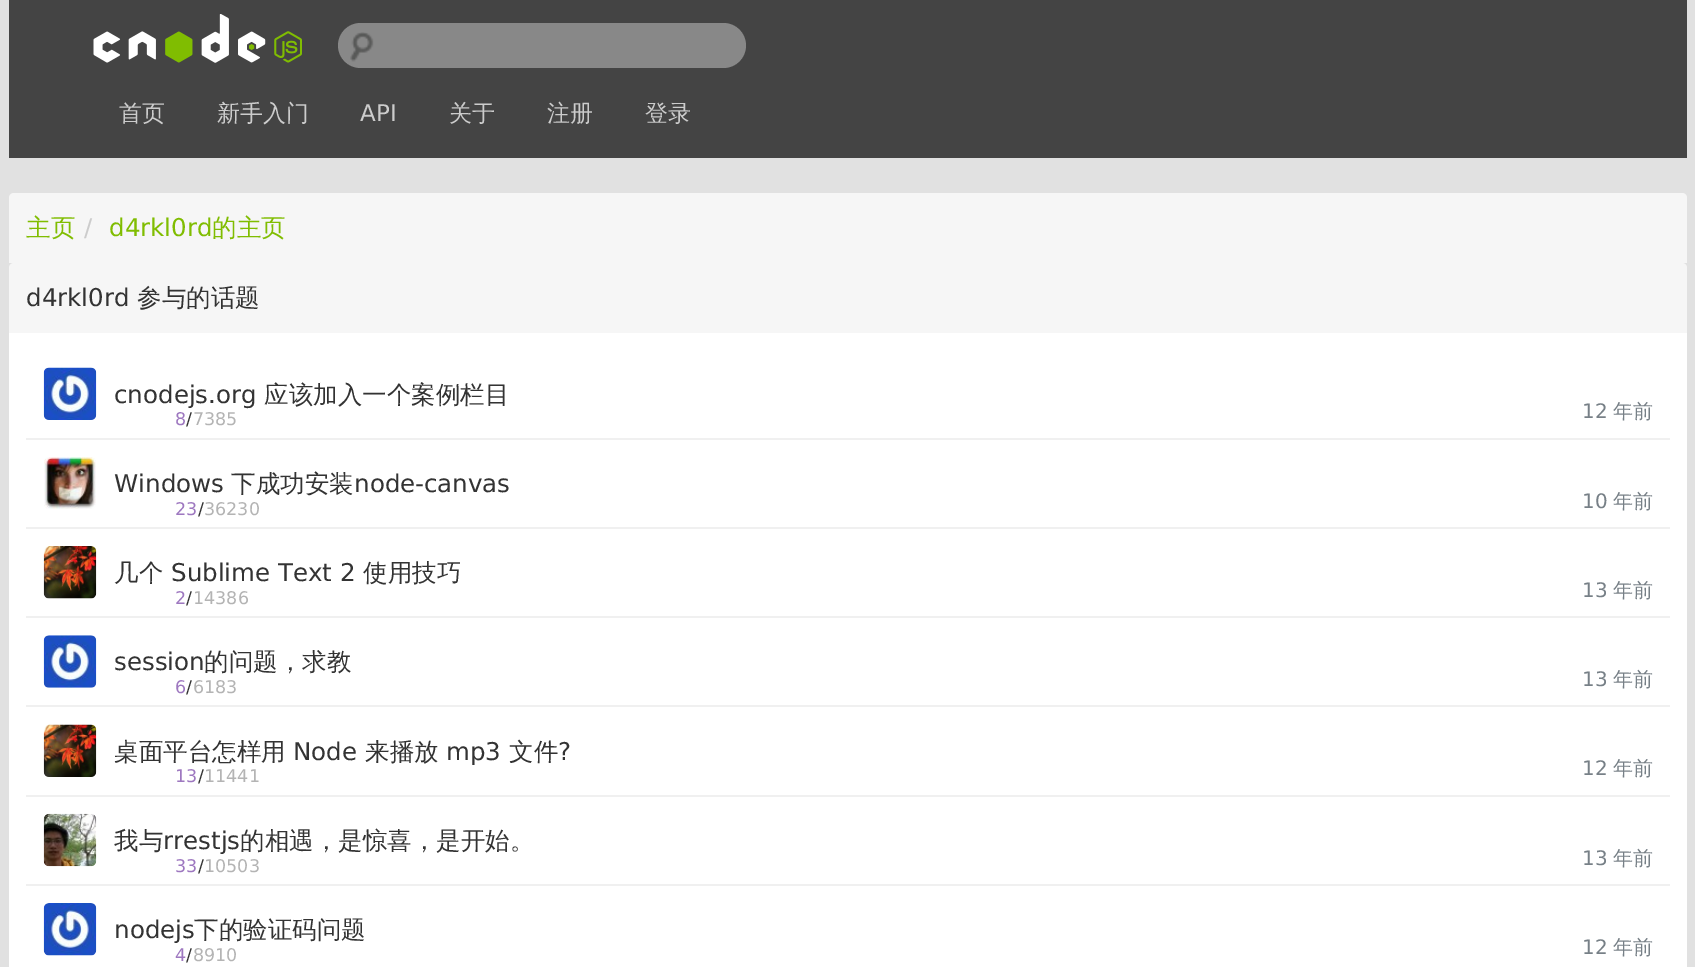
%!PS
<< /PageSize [1695 967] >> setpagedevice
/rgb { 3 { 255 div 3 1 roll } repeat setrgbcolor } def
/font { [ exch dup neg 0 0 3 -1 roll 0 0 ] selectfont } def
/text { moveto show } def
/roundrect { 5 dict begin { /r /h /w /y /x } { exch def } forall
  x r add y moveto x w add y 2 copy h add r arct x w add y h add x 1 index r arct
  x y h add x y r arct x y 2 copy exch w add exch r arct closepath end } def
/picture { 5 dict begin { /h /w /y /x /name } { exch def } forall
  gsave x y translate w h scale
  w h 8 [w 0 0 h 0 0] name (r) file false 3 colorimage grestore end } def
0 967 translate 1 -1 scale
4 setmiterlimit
225 225 225 rgb
0 0 1695 967 rectfill
68 68 68 rgb
9 0 1678 158 rectfill
(img_01.rgb) 93 14 209 49 picture
136 136 136 rgb
338 23 408 45 22.5 roundrect fill
(img_02.rgb) 350 32 24 30 picture
246 246 246 rgb
14 193 moveto 1668 0 rlineto 3 0 5 2 5 5 rcurveto 0 65 rlineto -1678 0 rlineto 0 -65 rlineto 0 -3 2 -5 5 -5 rcurveto closepath fill
14 263 moveto 1668 0 rlineto 3 0 5 2 5 5 rcurveto 0 65 rlineto -1678 0 rlineto 0 -65 rlineto 0 -3 2 -5 5 -5 rcurveto closepath fill
255 255 255 rgb
9 333 1678 634 rectfill
(img_03.rgb) 43 367 54 53 picture
240 240 240 rgb
26 438 1644 2 rectfill
(img_04.rgb) 44 457 52 52 picture
26 527 1644 2 rectfill
(img_05.rgb) 43 546 54 53 picture
26 616 1644 2 rectfill
(img_06.rgb) 43 635 54 53 picture
26 705 1644 2 rectfill
(img_07.rgb) 43 724 54 53 picture
26 795 1644 2 rectfill
(img_08.rgb) 43 813 54 54 picture
26 884 1644 2 rectfill
(img_09.rgb) 43 903 54 53 picture
/WenQuanYiZenHei-Medium 23 font
204 204 204 rgb
(首页) 119 121 text
(新手入门) 217 121 text
/DejaVuSans-Regular 23 font
(API) 360 121 text
/WenQuanYiZenHei-Medium 23 font
(关于) 449 121 text
(注册) 547 121 text
(登录) 645 121 text
/WenQuanYiZenHei-Medium 24.5 font
128 189 1 rgb
(主页) 26 236 text
/DejaVuSans-Regular 24.5 font
204 204 204 rgb
(/) 84 236 text
128 189 1 rgb
(d4rkl0rd) 109 236 text
/WenQuanYiZenHei-Medium 24.5 font
(的主页) 212 236 text
/DejaVuSans-Regular 24.5 font
51 51 51 rgb
(d4rkl0rd) 26 306 text
/WenQuanYiZenHei-Medium 24.5 font
(参与的话题) 137 306 text
/DejaVuSans-Regular 24.5 font
(cnodejs.org) 114 403 text
/WenQuanYiZenHei-Medium 24.5 font
(应该加入一个案例栏目) 264 403 text
/DejaVuSans-Regular 17.5 font
158 120 192 rgb
(8) 175 425 text
51 51 51 rgb
(/) 186 425 text
180 180 180 rgb
(7385) 193 425 text
/DejaVuSans-Regular 20 font
119 128 135 rgb
(12) 1582 418 text
/WenQuanYiZenHei-Medium 20 font
(年前) 1613 418 text
/DejaVuSans-Regular 24.5 font
51 51 51 rgb
(Windows) 114 492 text
/WenQuanYiZenHei-Medium 24.5 font
(下成功安装) 231 492 text
/DejaVuSans-Regular 24.5 font
(node-canvas) 354 492 text
/DejaVuSans-Regular 17.5 font
158 120 192 rgb
(23) 175 515 text
51 51 51 rgb
(/) 198 515 text
180 180 180 rgb
(36230) 204 515 text
/DejaVuSans-Regular 20 font
119 128 135 rgb
(10) 1582 508 text
/WenQuanYiZenHei-Medium 20 font
(年前) 1613 508 text
/WenQuanYiZenHei-Medium 24.5 font
51 51 51 rgb
(几个) 114 581 text
/DejaVuSans-Regular 24.5 font
(Sublime Text 2) 171 581 text
/WenQuanYiZenHei-Medium 24.5 font
(使用技巧) 363 581 text
/DejaVuSans-Regular 17.5 font
158 120 192 rgb
(2) 175 604 text
51 51 51 rgb
(/) 186 604 text
180 180 180 rgb
(14386) 193 604 text
/DejaVuSans-Regular 20 font
119 128 135 rgb
(13) 1582 597 text
/WenQuanYiZenHei-Medium 20 font
(年前) 1613 597 text
/DejaVuSans-Regular 24.5 font
51 51 51 rgb
(session) 114 670 text
/WenQuanYiZenHei-Medium 24.5 font
(的问题，求教) 204 670 text
/DejaVuSans-Regular 17.5 font
158 120 192 rgb
(6) 175 693 text
51 51 51 rgb
(/) 186 693 text
180 180 180 rgb
(6183) 193 693 text
/DejaVuSans-Regular 20 font
119 128 135 rgb
(13) 1582 686 text
/WenQuanYiZenHei-Medium 20 font
(年前) 1613 686 text
/WenQuanYiZenHei-Medium 24.5 font
51 51 51 rgb
(桌面平台怎样用) 114 760 text
/DejaVuSans-Regular 24.5 font
(Node) 293 760 text
/WenQuanYiZenHei-Medium 24.5 font
(来播放) 365 760 text
/DejaVuSans-Regular 24.5 font
(mp3) 446 760 text
/WenQuanYiZenHei-Medium 24.5 font
(文件) 509 760 text
/DejaVuSans-Regular 24.5 font
(?) 558 760 text
/DejaVuSans-Regular 17.5 font
158 120 192 rgb
(13) 175 782 text
51 51 51 rgb
(/) 198 782 text
180 180 180 rgb
(11441) 204 782 text
/DejaVuSans-Regular 20 font
119 128 135 rgb
(12) 1582 775 text
/WenQuanYiZenHei-Medium 20 font
(年前) 1613 775 text
/WenQuanYiZenHei-Medium 24.5 font
51 51 51 rgb
(我与) 114 849 text
/DejaVuSans-Regular 24.5 font
(rrestjs) 163 849 text
/WenQuanYiZenHei-Medium 24.5 font
(的相遇，是惊喜，是开始。) 240 849 text
/DejaVuSans-Regular 17.5 font
158 120 192 rgb
(33) 175 872 text
51 51 51 rgb
(/) 198 872 text
180 180 180 rgb
(10503) 204 872 text
/DejaVuSans-Regular 20 font
119 128 135 rgb
(13) 1582 865 text
/WenQuanYiZenHei-Medium 20 font
(年前) 1613 865 text
/DejaVuSans-Regular 24.5 font
51 51 51 rgb
(nodejs) 114 938 text
/WenQuanYiZenHei-Medium 24.5 font
(下的验证码问题) 194 938 text
/DejaVuSans-Regular 17.5 font
158 120 192 rgb
(4) 175 961 text
51 51 51 rgb
(/) 186 961 text
180 180 180 rgb
(8910) 193 961 text
/DejaVuSans-Regular 20 font
119 128 135 rgb
(12) 1582 954 text
/WenQuanYiZenHei-Medium 20 font
(年前) 1613 954 text
showpage
